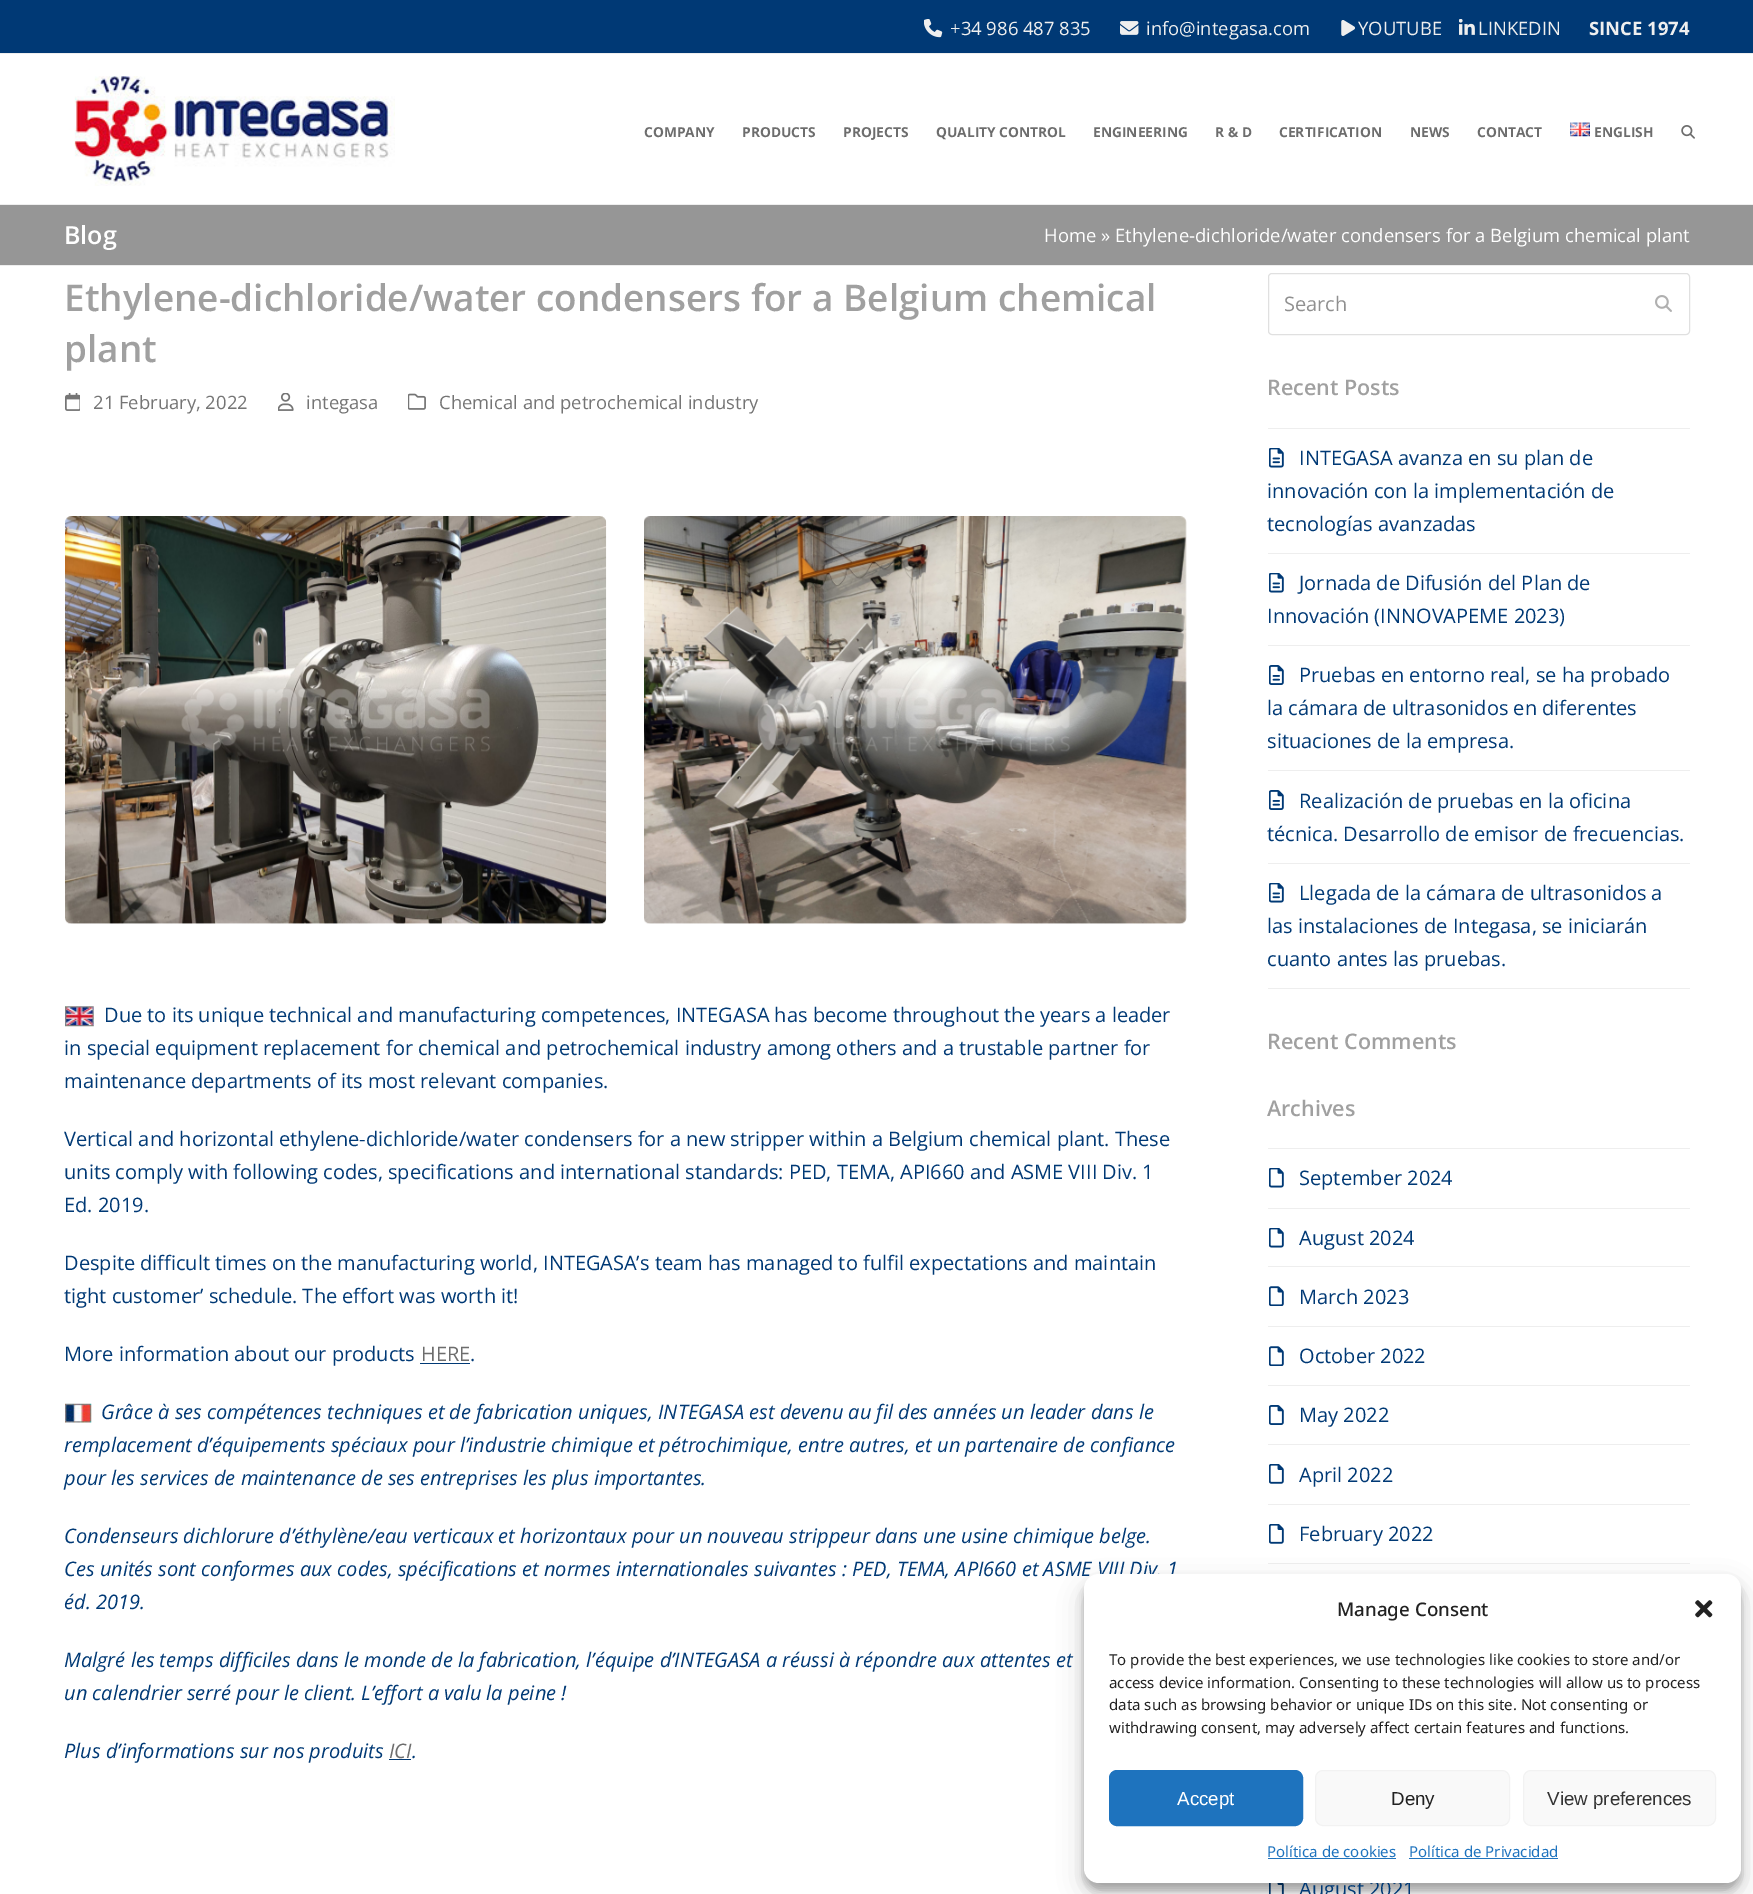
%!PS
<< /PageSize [1753 1894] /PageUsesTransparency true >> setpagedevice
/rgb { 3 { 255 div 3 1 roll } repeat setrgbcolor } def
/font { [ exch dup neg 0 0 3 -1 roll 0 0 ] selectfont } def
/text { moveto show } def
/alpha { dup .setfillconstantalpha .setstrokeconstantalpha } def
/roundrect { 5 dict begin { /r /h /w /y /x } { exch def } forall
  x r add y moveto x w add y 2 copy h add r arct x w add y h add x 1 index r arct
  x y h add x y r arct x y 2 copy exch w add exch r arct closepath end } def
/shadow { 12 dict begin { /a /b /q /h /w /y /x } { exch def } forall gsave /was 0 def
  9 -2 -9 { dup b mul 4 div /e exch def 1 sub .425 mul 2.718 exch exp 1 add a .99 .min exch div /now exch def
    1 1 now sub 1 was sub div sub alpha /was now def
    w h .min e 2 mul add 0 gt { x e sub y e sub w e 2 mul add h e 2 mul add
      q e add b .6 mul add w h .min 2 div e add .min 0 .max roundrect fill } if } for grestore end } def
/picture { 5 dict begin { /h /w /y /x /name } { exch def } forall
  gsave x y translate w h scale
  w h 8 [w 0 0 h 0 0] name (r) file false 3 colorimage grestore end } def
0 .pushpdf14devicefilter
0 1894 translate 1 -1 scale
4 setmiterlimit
255 255 255 rgb
0 0 1753 1894 rectfill
0 57 117 rgb
0 0 1753 53 rectfill
238 238 238 rgb
0 53 1753 1 rectfill
(img_01.rgb) 924 19 19 19 picture
(img_02.rgb) 1120 21 19 14 picture
(img_03.rgb) 1341 20 14 16 picture
(img_04.rgb) 1459 19 16 16 picture
(img_05.rgb) 74 76 321 110 picture
(img_06.rgb) 1570 122 20 15 picture
(img_07.rgb) 1681 125 14 14 picture
150 150 150 rgb
0 205 1753 60 rectfill
238 238 238 rgb
0 204 1753 1 rectfill
0 265 1753 1 rectfill
(img_08.rgb) 65 393 15 18 picture
(img_09.rgb) 278 393 16 18 picture
(img_10.rgb) 408 393 18 17 picture
(img_11.rgb) 65 516 542 408 picture
(img_12.rgb) 644 516 543 408 picture
(img_13.rgb) 65 1006 29 21 picture
0 57 117 rgb
420 1363 50 1 rectfill
(img_14.rgb) 65 1403 27 20 picture
389 1759 22 1 rectfill
224 224 224 rgb
1268.5 273.5 421 61 3.5 roundrect stroke
(img_15.rgb) 1655 295 17 17 picture
238 238 238 rgb
1268 428 422 1 rectfill
1268 553 422 1 rectfill
(img_16.rgb) 1269 448 15 20 picture
1268 645 422 1 rectfill
(img_16.rgb) 1269 573 15 20 picture
1268 770 422 1 rectfill
(img_17.rgb) 1269 665 15 20 picture
1268 863 422 1 rectfill
(img_17.rgb) 1269 790 15 20 picture
1268 988 422 1 rectfill
(img_16.rgb) 1269 883 15 20 picture
1268 1148 422 1 rectfill
1268 1208 422 1 rectfill
(img_18.rgb) 1269 1168 15 20 picture
1268 1266 422 1 rectfill
(img_18.rgb) 1269 1228 15 20 picture
1268 1326 422 1 rectfill
(img_19.rgb) 1269 1286 15 20 picture
1268 1385 422 1 rectfill
(img_19.rgb) 1269 1346 15 20 picture
1268 1444 422 1 rectfill
(img_20.rgb) 1269 1405 15 20 picture
1268 1504 422 1 rectfill
(img_21.rgb) 1269 1464 15 20 picture
1268 1563 422 1 rectfill
(img_21.rgb) 1269 1524 15 20 picture
(img_22.rgb) 1269 1883 15 11 picture
0 0 0 rgb
1084 1581 657 309 15 4 0.23 shadow
1084 1586 657 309 15 12.5 0.19 shadow
/OpenSans-Regular 18.45 font
239 239 239 rgb
(+34 986 487 835) 950 35 text
(info@integasa.com) 1146 35 text
(YOUTUBE) 1358 35 text
(LINKEDIN) 1478 35 text
/OpenSans-Bold 18.45 font
(SINCE 1974) 1589 35 text
/OpenSans-Bold 13.75 font
109 109 109 rgb
(COMPANY) 644 137 text
(PRODUCTS) 742 137 text
(PROJECTS) 843 137 text
(QUALITY CONTROL) 936 137 text
(ENGINEERING) 1093 137 text
(R & D) 1215 137 text
(CERTIFICATION) 1279 137 text
(NEWS) 1410 137 text
(CONTACT) 1477 137 text
(ENGLISH) 1594 137 text
/OpenSans-SemiBold 25 font
255 255 255 rgb
(Blog) 64 244 text
/OpenSans-Regular 18.45 font
(Home » Ethylene-dichloride/water condensers for a Belgium chemical plant) 1044 242 text
/OpenSans-SemiBold 36.9 font
160 160 160 rgb
(Ethylene-dichloride/water condensers for a Belgium chemical) 64 311 text
(plant) 64 362 text
/OpenSans-Regular 18.45 font
117 117 117 rgb
(21 February, 2022) 93 409 text
(integasa) 306 409 text
(Chemical and petrochemical industry) 439 409 text
/OpenSans-Regular 20 font
0 57 117 rgb
(Due to its unique technical and manufacturing competences, INTEGASA has become throughout the years a leader) 104 1022 text
(in special equipment replacement for chemical and petrochemical industry among others and a trustable partner for) 64 1055 text
(maintenance departments of its most relevant companies.) 64 1088 text
(Vertical and horizontal ethylene-dichloride/water condensers for a new stripper within a Belgium chemical plant. These) 64 1146 text
(units comply with following codes, specifications and international standards: PED, TEMA, API660 and ASME VIII Div. 1) 64 1179 text
(Ed. 2019.) 64 1212 text
(Despite difficult times on the manufacturing world, INTEGASA’s team has managed to fulfil expectations and maintain) 64 1270 text
(tight customer’ schedule. The effort was worth it!) 64 1303 text
(More information about our products) 64 1361 text
109 109 109 rgb
(HERE) 421 1361 text
0 57 117 rgb
(.) 470 1361 text
/OpenSans-Italic 20 font
(Grâce à ses compétences techniques et de fabrication uniques, INTEGASA est devenu au fil des années un leader dans le) 101 1419 text
(remplacement d’équipements spéciaux pour l’industrie chimique et pétrochimique, entre autres, et un partenaire de confiance) 64 1452 text
(pour les services de maintenance de ses entreprises les plus importantes.) 64 1485 text
(Condenseurs dichlorure d’éthylène/eau verticaux et horizontaux pour un nouveau strippeur dans une usine chimique belge.) 64 1543 text
(Ces unités sont conformes aux codes, spécifications et normes internationales suivantes : PED, TEMA, API660 et ASME VIII Div. 1) 64 1576 text
(éd. 2019.) 64 1609 text
(Malgré les temps difficiles dans le monde de la fabrication, l’équipe d’INTEGASA a réussi à répondre aux attentes et) 64 1667 text
(un calendrier serré pour le client. L’effort a valu la peine !) 64 1700 text
(Plus d’informations sur nos produits) 64 1758 text
109 109 109 rgb
(ICI) 389 1758 text
0 57 117 rgb
(.) 412 1758 text
/OpenSans-Regular 20 font
144 144 144 rgb
(Search) 1284 311 text
/OpenSans-SemiBold 21.5 font
160 160 160 rgb
(Recent Posts) 1267 395 text
/OpenSans-Regular 20 font
0 57 117 rgb
(INTEGASA avanza en su plan de) 1299 465 text
(innovación con la implementación de) 1267 498 text
(tecnologías avanzadas) 1267 531 text
(Jornada de Difusión del Plan de) 1299 590 text
(Innovación \(INNOVAPEME 2023\)) 1267 623 text
(Pruebas en entorno real, se ha probado) 1299 682 text
(la cámara de ultrasonidos en diferentes) 1267 715 text
(situaciones de la empresa.) 1267 748 text
(Realización de pruebas en la oficina) 1299 808 text
(técnica. Desarrollo de emisor de frecuencias.) 1267 841 text
(Llegada de la cámara de ultrasonidos a) 1299 900 text
(las instalaciones de Integasa, se iniciarán) 1267 933 text
(cuanto antes las pruebas.) 1267 966 text
/OpenSans-SemiBold 21.5 font
160 160 160 rgb
(Recent Comments) 1267 1049 text
(Archives) 1267 1116 text
/OpenSans-Regular 20 font
0 57 117 rgb
(September 2024) 1299 1185 text
(August 2024) 1299 1245 text
(March 2023) 1299 1304 text
(October 2022) 1299 1363 text
(May 2022) 1299 1422 text
(April 2022) 1299 1482 text
(February 2022) 1299 1541 text
(August 2021) 1299 1896 text
255 255 255 rgb
1084 1574 657 309 15 roundrect fill
/NotoSans-Medium 18.75 font
34 34 34 rgb
(Manage Consent) 1337 1616 text
(img_23.rgb) 1695 1600 18 18 picture
/NotoSans-Regular 15 font
(To provide the best experiences, we use technologies like cookies to store and/or) 1109 1665 text
(access device information. Consenting to these technologies will allow us to process) 1109 1688 text
(data such as browsing behavior or unique IDs on this site. Not consenting or) 1109 1710 text
(withdrawing consent, may adversely affect certain features and functions.) 1109 1733 text
30 115 190 rgb
1109.5 1770.5 193 55 7.5 roundrect gsave fill grestore
stroke
/LiberationSans-Regular 18.75 font
255 255 255 rgb
(Accept) 1177 1805 text
249 249 249 rgb
1315.5 1770.5 194 55 7.5 roundrect gsave fill grestore
242 242 242 rgb
stroke
34 34 34 rgb
(Deny) 1391 1805 text
249 249 249 rgb
1523.5 1770.5 192 55 7.5 roundrect gsave fill grestore
242 242 242 rgb
stroke
51 51 51 rgb
(View preferences) 1547 1805 text
/NotoSans-Regular 15 font
30 115 190 rgb
(Política de cookies) 1267 1857 text
1268 1858 128 1 rectfill
(Política de Privacidad) 1409 1857 text
1409 1858 149 1 rectfill
.poppdf14devicefilter showpage
